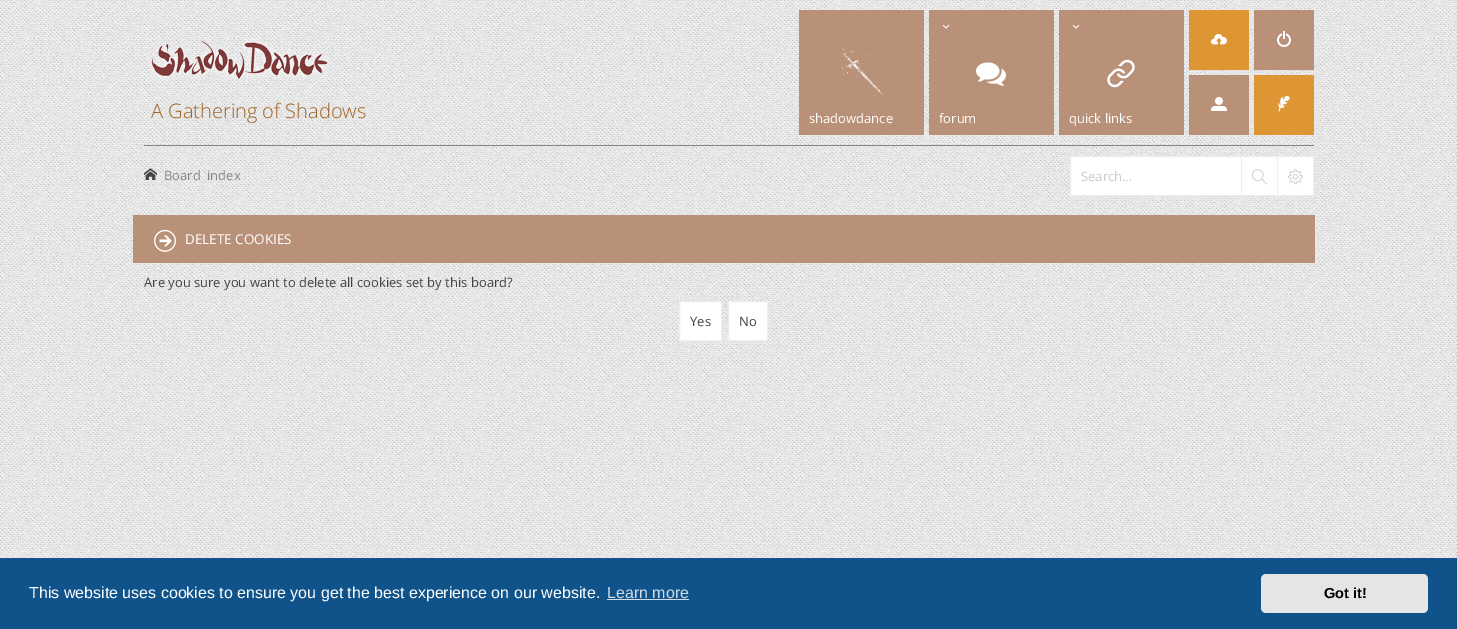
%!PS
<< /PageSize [1457 629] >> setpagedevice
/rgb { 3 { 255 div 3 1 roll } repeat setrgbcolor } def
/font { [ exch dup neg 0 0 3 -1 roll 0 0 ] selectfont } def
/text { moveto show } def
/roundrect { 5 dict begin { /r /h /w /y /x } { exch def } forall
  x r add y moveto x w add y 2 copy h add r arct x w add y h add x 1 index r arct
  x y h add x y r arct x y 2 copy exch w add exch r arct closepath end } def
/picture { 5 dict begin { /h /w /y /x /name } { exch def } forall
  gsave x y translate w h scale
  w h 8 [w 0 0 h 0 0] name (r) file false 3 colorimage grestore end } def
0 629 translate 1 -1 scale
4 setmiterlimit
255 255 255 rgb
0 0 1457 629 rectfill
(img_01.rgb) 0 0 1457 558 picture
(img_02.rgb) 148 38 182 44 picture
185 145 121 rgb
799 10 125 125 rectfill
(img_03.rgb) 841 48 42 47 picture
929 10 125 125 rectfill
(img_04.rgb) 942 24 8 5 picture
(img_05.rgb) 976 62 30 24 picture
1059 10 125 125 rectfill
(img_04.rgb) 1072 24 8 5 picture
(img_06.rgb) 1107 59 28 29 picture
221 150 51 rgb
1189 10 60 60 rectfill
(img_07.rgb) 1211 34 16 11 picture
185 145 121 rgb
1254 10 60 60 rectfill
(img_08.rgb) 1277 31 14 16 picture
1189 75 60 60 rectfill
(img_09.rgb) 1211 97 16 14 picture
221 150 51 rgb
1254 75 60 60 rectfill
(img_10.rgb) 1278 95 12 17 picture
136 136 136 rgb
144 145 1170 1 rectfill
(img_11.rgb) 144 168 13 12 picture
255 255 255 rgb
1070.5 156.5 moveto 243 0 rlineto 0 39 rlineto -243 0 rlineto closepath gsave fill grestore
238 238 238 rgb
stroke
1241 157 1 38 rectfill
(img_12.rgb) 1252 169 15 16 picture
1277 157 1 38 rectfill
(img_13.rgb) 1288 169 15 16 picture
185 145 121 rgb
133 215 1182 48 rectfill
(img_14.rgb) 154 229 22 23 picture
255 255 255 rgb
679.5 301.5 moveto 42 0 rlineto 0 39 rlineto -42 0 rlineto closepath gsave fill grestore
238 238 238 rgb
stroke
255 255 255 rgb
728.5 301.5 moveto 39 0 rlineto 0 39 rlineto -39 0 rlineto closepath gsave fill grestore
238 238 238 rgb
stroke
15 83 138 rgb
0 558 1457 71 rectfill
207 221 232 rgb
607 599 82 1 rectfill
229 229 229 rgb
1261 574 167 39 5 roundrect fill
/OpenSans-Light 20 font
160 100 36 rgb
(A Gathering of Shadows) 151 118 text
/OpenSans-Regular 13 font
255 255 255 rgb
(shadowdance) 809 123 text
(forum) 939 123 text
(quick links) 1069 123 text
136 136 136 rgb
164 180 moveto 3 0 32 (Board index) widthshow
204 204 204 rgb
(Search…) 1081 181 text
/OpenSans-Regular 13.5 font
255 255 255 rgb
(DELETE COOKIES) 185 244 text
/OpenSans-Regular 13 font
68 68 68 rgb
(Are you sure you want to delete all cookies set by this board?) 144 287 text
(Yes) 690 326 text
(No) 739 326 text
/LiberationSans-Regular 16 font
255 255 255 rgb
(This website uses cookies to ensure you get the best experience on our website.) 29 598 text
207 221 232 rgb
(Learn more) 607 598 text
/LiberationSans-Bold 14.5 font
0 0 0 rgb
(Got it!) 1324 598 text
showpage
